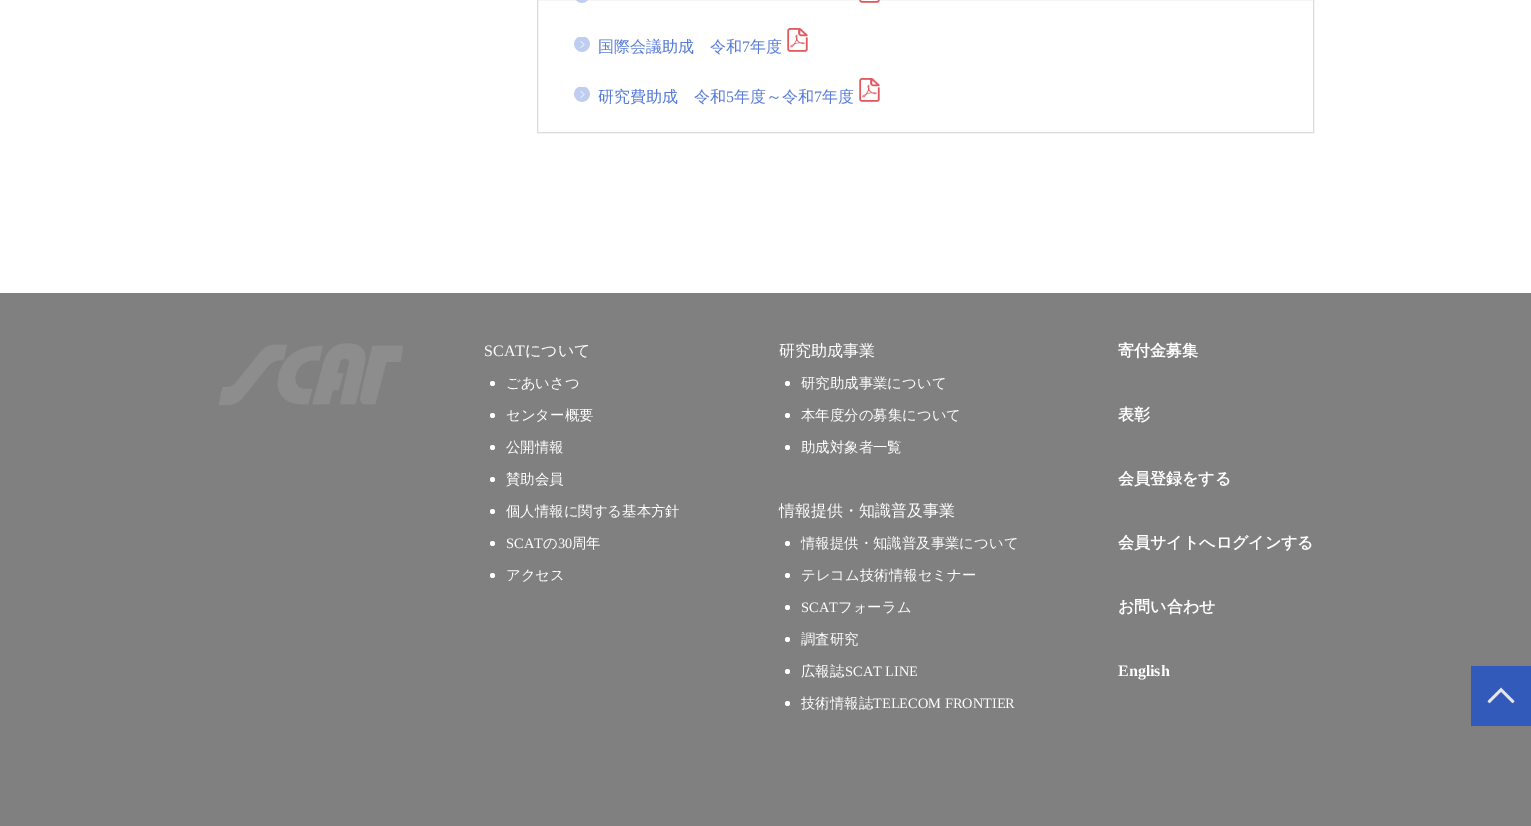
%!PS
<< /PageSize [1531 826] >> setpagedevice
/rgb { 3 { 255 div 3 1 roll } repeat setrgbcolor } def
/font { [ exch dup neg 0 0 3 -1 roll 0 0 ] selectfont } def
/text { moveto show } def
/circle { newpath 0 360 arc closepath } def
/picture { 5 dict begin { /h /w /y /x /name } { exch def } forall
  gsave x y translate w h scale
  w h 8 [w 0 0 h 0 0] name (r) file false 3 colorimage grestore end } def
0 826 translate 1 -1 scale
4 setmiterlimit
255 255 255 rgb
0 0 1531 826 rectfill
219 219 219 rgb
537.5 -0.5 776 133 rectstroke
(img_01.rgb) 576 0 12 3 picture
(img_02.rgb) 859 0 21 3 picture
(img_03.rgb) 574 37 16 15 picture
(img_04.rgb) 787 28 21 24 picture
(img_03.rgb) 574 87 16 15 picture
(img_04.rgb) 859 78 21 24 picture
128 128 128 rgb
0 293 1531 533 rectfill
(img_05.rgb) 218 343 185 62 picture
255 255 255 rgb
492.5 383.5 2.5 circle fill
492.5 415.5 2.5 circle fill
492.5 447.5 2.5 circle fill
492.5 479.5 2.5 circle fill
492.5 511.5 2.5 circle fill
492.5 543.5 2.5 circle fill
492.5 575.5 2.5 circle fill
787.5 383.5 2.5 circle fill
787.5 415.5 2.5 circle fill
787.5 447.5 2.5 circle fill
787.5 543.5 2.5 circle fill
787.5 575.5 2.5 circle fill
787.5 607.5 2.5 circle fill
787.5 639.5 2.5 circle fill
787.5 671.5 2.5 circle fill
787.5 703.5 2.5 circle fill
(img_06.rgb) 1471 666 60 60 picture
/WenQuanYiZenHei-Medium 16 font
87 124 215 rgb
(国際会議助成　令和) 598 52 text
/LiberationSerif-Regular 16 font
(7) 742 52 text
/WenQuanYiZenHei-Medium 16 font
(年度) 750 52 text
(研究費助成　令和) 598 102 text
/LiberationSerif-Regular 16 font
(5) 726 102 text
/WenQuanYiZenHei-Medium 16 font
(年度～令和) 734 102 text
/LiberationSerif-Regular 16 font
(7) 814 102 text
/WenQuanYiZenHei-Medium 16 font
(年度) 822 102 text
/LiberationSerif-Regular 16 font
255 255 255 rgb
(SCAT) 484 356 text
/WenQuanYiZenHei-Medium 16 font
(について) 525 356 text
/WenQuanYiZenHei-Medium 14.4 font
(ごあいさつ) 506 388 text
(センター概要) 506 420 text
(公開情報) 506 452 text
(賛助会員) 506 484 text
(個人情報に関する基本方針) 506 516 text
/LiberationSerif-Regular 14.4 font
(SCAT) 506 548 text
/WenQuanYiZenHei-Medium 14.4 font
(の) 543 548 text
/LiberationSerif-Regular 14.4 font
(30) 558 548 text
/WenQuanYiZenHei-Medium 14.4 font
(周年) 572 548 text
(アクセス) 506 580 text
/WenQuanYiZenHei-Medium 16 font
(研究助成事業) 779 356 text
/WenQuanYiZenHei-Medium 14.4 font
(研究助成事業について) 801 388 text
(本年度分の募集について) 801 420 text
(助成対象者一覧) 801 452 text
/WenQuanYiZenHei-Medium 16 font
(情報提供・知識普及事業) 779 516 text
/WenQuanYiZenHei-Medium 14.4 font
(情報提供・知識普及事業について) 801 548 text
(テレコム技術情報セミナー) 801 580 text
/LiberationSerif-Regular 14.4 font
(SCAT) 801 612 text
/WenQuanYiZenHei-Medium 14.4 font
(フォーラム) 838 612 text
(調査研究) 801 644 text
(広報誌) 801 676 text
/LiberationSerif-Regular 14.4 font
(SCAT LINE) 845 676 text
/WenQuanYiZenHei-Medium 14.4 font
(技術情報誌) 801 708 text
/LiberationSerif-Regular 14.4 font
(TELECOM FRONTIER) 873 708 text
/WenQuanYiZenHei-Bold 16 font
(寄付金募集) 1118 356 text
(表彰) 1118 420 text
(会員登録をする) 1118 484 text
(会員サイトへログインする) 1118 548 text
(お問い合わせ) 1118 612 text
/LiberationSerif-Bold 16 font
(English) 1118 676 text
showpage
